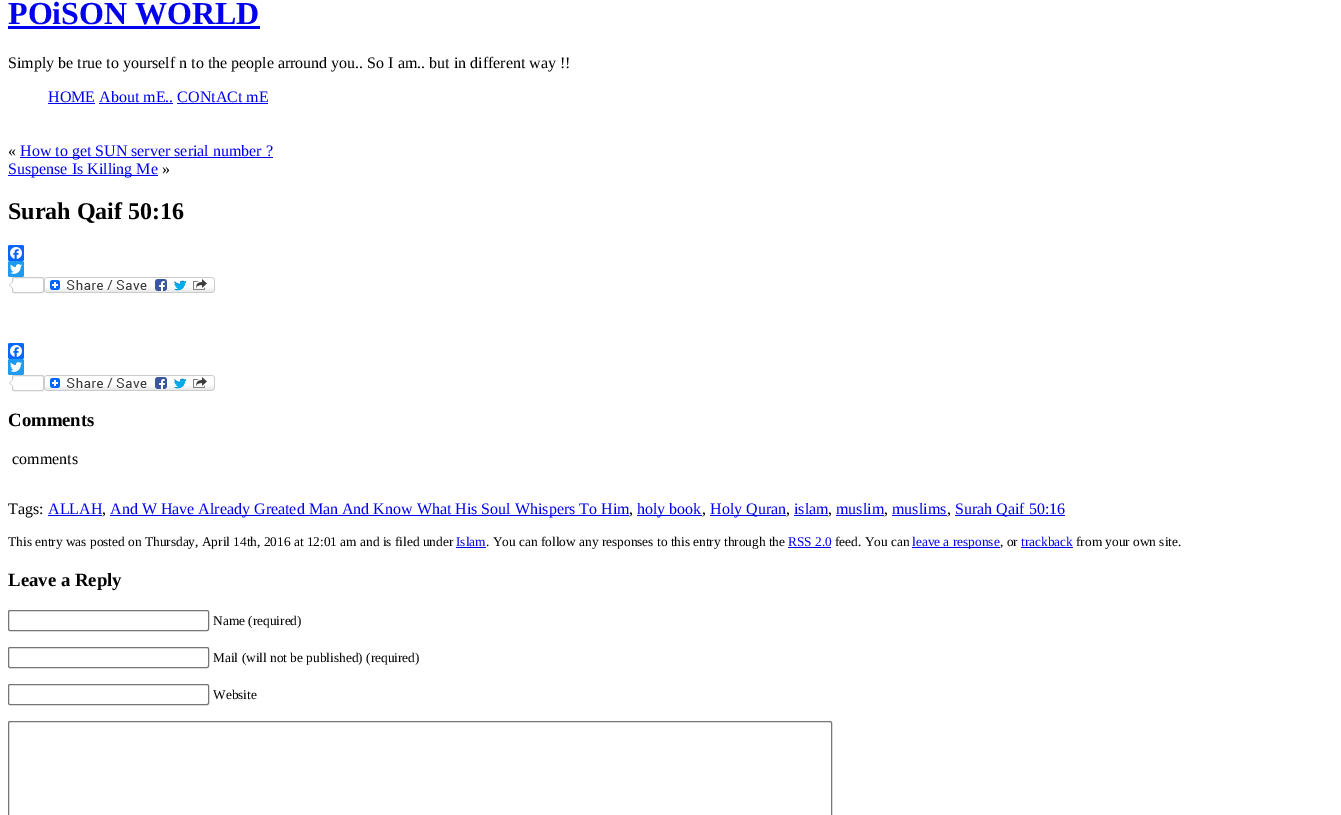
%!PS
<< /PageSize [1341 815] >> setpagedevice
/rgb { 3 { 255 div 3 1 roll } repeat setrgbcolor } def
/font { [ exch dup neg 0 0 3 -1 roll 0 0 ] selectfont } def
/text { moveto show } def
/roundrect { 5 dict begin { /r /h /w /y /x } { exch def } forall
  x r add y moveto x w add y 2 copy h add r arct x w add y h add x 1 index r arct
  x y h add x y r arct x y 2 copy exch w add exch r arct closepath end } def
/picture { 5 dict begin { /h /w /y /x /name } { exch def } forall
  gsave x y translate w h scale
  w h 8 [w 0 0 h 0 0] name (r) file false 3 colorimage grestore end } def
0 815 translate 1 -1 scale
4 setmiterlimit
255 255 255 rgb
0 0 1341 815 rectfill
0 0 238 rgb
8 26 252 3 rectfill
48 103 47 1 rectfill
99 103 74 1 rectfill
177 103 91 1 rectfill
20 157 253 1 rectfill
8 175 150 1 rectfill
8 102 255 rgb
8 245 16 16 2 roundrect fill
(img_01.rgb) 10 247 12 12 picture
29 155 240 rgb
8 261 16 16 2 roundrect fill
(img_02.rgb) 10 264 12 10 picture
204 204 204 rgb
12.5 277.5 31 15 1.5 roundrect stroke
13 281 moveto 0 8 rlineto -4 -4 rlineto closepath fill
255 255 255 rgb
14 281 moveto 0 8 rlineto -4 -4 rlineto closepath fill
(img_03.rgb) 44 277 171 16 picture
8 102 255 rgb
8 343 16 16 2 roundrect fill
(img_01.rgb) 10 345 12 12 picture
29 155 240 rgb
8 359 16 16 2 roundrect fill
(img_02.rgb) 10 362 12 10 picture
204 204 204 rgb
12.5 375.5 31 15 1.5 roundrect stroke
13 379 moveto 0 8 rlineto -4 -4 rlineto closepath fill
255 255 255 rgb
14 379 moveto 0 8 rlineto -4 -4 rlineto closepath fill
(img_03.rgb) 44 375 171 16 picture
0 0 238 rgb
48 515 54 1 rectfill
110 515 519 1 rectfill
637 515 65 1 rectfill
710 515 76 1 rectfill
794 515 34 1 rectfill
836 515 48 1 rectfill
892 515 55 1 rectfill
955 515 110 1 rectfill
456 547 30 1 rectfill
788 547 43 1 rectfill
912 547 88 1 rectfill
1021 547 52 1 rectfill
118 118 118 rgb
8.5 610.5 200 20 1.5 roundrect stroke
8.5 647.5 200 20 1.5 roundrect stroke
8.5 684.5 200 20 1.5 roundrect stroke
8.5 721.5 823 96 1.5 roundrect stroke
/LiberationSerif-Bold 32 font
0 0 238 rgb
(POiSON WORLD) 8 24 text
/LiberationSerif-Regular 16 font
0 0 0 rgb
(Simply be true to yourself n to the people arround you.. So I am.. but in different way !!) 8 68 text
0 0 238 rgb
(HOME About mE.. CONtACt mE) 48 102 text
0 0 0 rgb
(«) 8 156 text
0 0 238 rgb
(How to get SUN server serial number ?) 20 156 text
(Suspense Is Killing Me) 8 174 text
0 0 0 rgb
(») 162 174 text
/LiberationSerif-Bold 24 font
(Surah Qaif 50:16) 8 219 text
/LiberationSerif-Bold 18.75 font
(Comments) 8 426 text
/LiberationSerif-Regular 16 font
(comments) 12 464 text
(Tags:) 8 514 text
0 0 238 rgb
(ALLAH) 48 514 text
(And W Have Already Greated Man And Know What His Soul Whispers To Him) 110 514 text
(holy book) 637 514 text
(Holy Quran) 710 514 text
(islam) 794 514 text
(muslim) 836 514 text
(muslims) 892 514 text
(Surah Qaif 50:16) 955 514 text
0 0 0 rgb
(,) 102 514 text
(,) 629 514 text
(,) 702 514 text
(,) 786 514 text
(,) 828 514 text
(,) 884 514 text
(,) 947 514 text
/LiberationSerif-Regular 13.35 font
(This entry was posted on Thursday, April 14th, 2016 at 12:01 am and is filed under) 8 546 text
0 0 238 rgb
(Islam) 456 546 text
0 0 0 rgb
(. You can follow any responses to this entry through the) 486 546 text
0 0 238 rgb
(RSS 2.0) 788 546 text
0 0 0 rgb
(feed. You can) 835 546 text
0 0 238 rgb
(leave a response) 912 546 text
0 0 0 rgb
(, or) 1000 546 text
0 0 238 rgb
(trackback) 1021 546 text
0 0 0 rgb
(from your own site.) 1076 546 text
/LiberationSerif-Bold 18.75 font
(Leave a Reply) 8 586 text
/LiberationSerif-Regular 13.35 font
(Name \(required\)) 213 625 text
(Mail \(will not be published\) \(required\)) 213 662 text
(Website) 213 699 text
showpage
